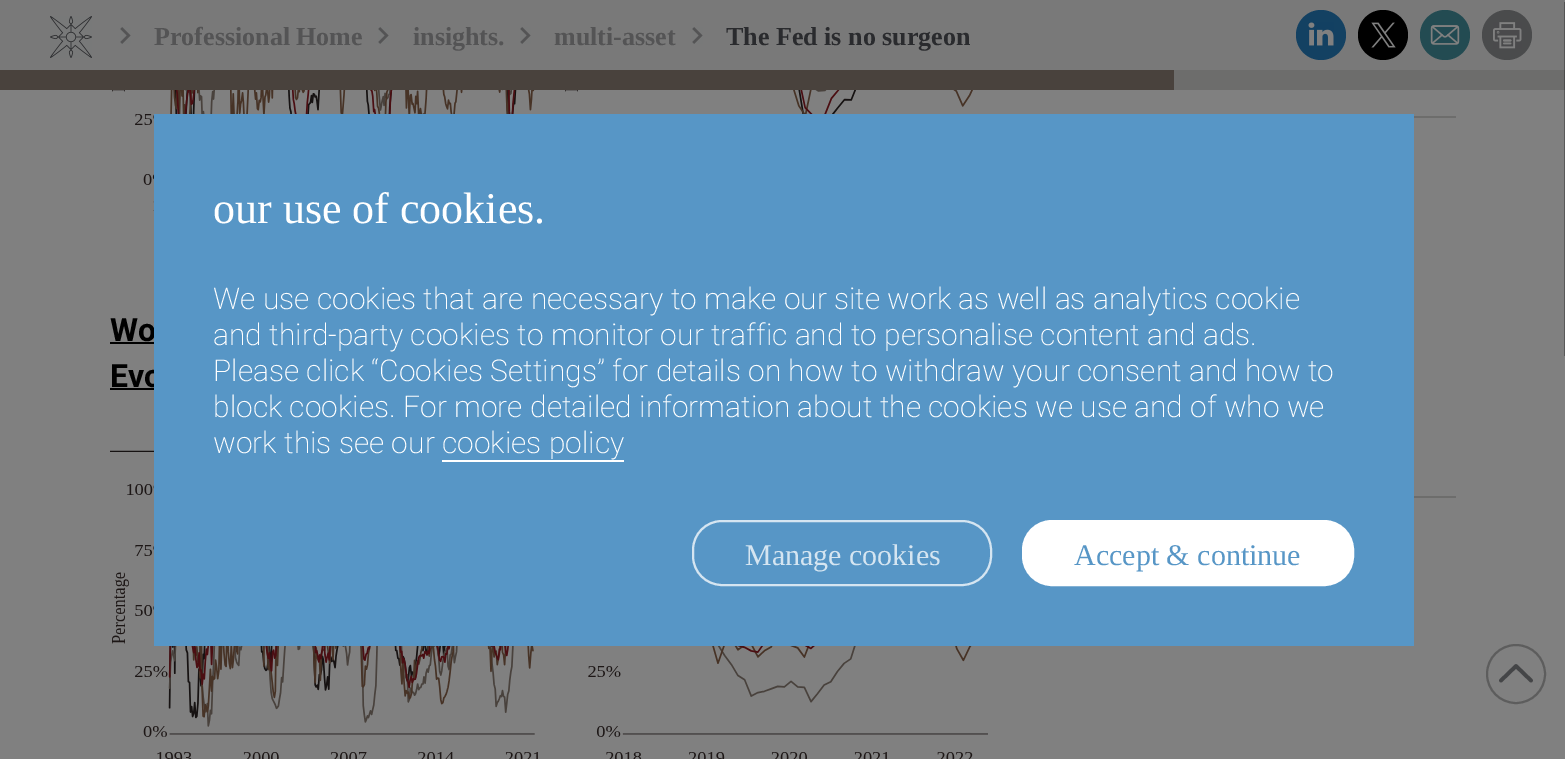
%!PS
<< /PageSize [1565 759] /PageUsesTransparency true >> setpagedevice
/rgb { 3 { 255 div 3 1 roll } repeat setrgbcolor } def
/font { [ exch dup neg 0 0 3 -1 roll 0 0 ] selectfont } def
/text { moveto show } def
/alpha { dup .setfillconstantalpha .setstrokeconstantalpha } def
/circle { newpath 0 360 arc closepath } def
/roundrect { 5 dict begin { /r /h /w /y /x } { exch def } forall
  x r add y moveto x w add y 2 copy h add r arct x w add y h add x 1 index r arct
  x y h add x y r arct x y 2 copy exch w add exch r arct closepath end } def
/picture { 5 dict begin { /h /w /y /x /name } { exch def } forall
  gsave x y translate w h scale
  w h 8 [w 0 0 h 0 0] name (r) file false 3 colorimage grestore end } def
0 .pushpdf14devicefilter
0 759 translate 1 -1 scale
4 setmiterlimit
128 128 128 rgb
0 0 1565 759 rectfill
121 121 121 rgb
0 0 1565 70 rectfill
(img_01.rgb) 50 16 42 42 picture
(img_02.rgb) 120 27 11 17 picture
(img_02.rgb) 378 27 11 17 picture
(img_02.rgb) 520 27 11 17 picture
(img_02.rgb) 692 27 11 17 picture
19 65 98 rgb
1321 35 25 circle fill
(img_03.rgb) 1308 22 26 24 picture
0 0 0 rgb
1383 35 25 circle fill
(img_04.rgb) 1371 22 25 26 picture
35 75 82 rgb
1445 35 25 circle fill
(img_05.rgb) 1430 25 30 20 picture
74 75 76 rgb
1507 35 25 circle fill
(img_06.rgb) 1493 22 29 27 picture
109 109 108 rgb
1174 70 391 20 rectfill
73 66 61 rgb
0 70 1174 20 rectfill
(img_07.rgb) 112 90 861 121 picture
0 0 0 rgb
110 342 44 2 rectfill
110 388 44 2 rectfill
(img_08.rgb) 110 450 878 309 picture
109 109 108 rgb
1414 116 42 2 rectfill
1414 496 42 2 rectfill
93 93 93 rgb
2 setlinewidth
1516 674 29 circle stroke
68 69 71 rgb
3.7 setlinewidth
1 setlinecap
1531 680.5 moveto -14.5 -14 rlineto -0.5 -0.5 -0.5 -0.5 -1 0 rcurveto -14.5 14 rlineto stroke
0.3 alpha
0 0 0 rgb
1564 2 moveto 0 354 rlineto 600 0 rlineto 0 -2 rlineto -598 0 rlineto 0 -352 rlineto closepath fill
/LiberationSerif-Bold 26 font
1 alpha
84 84 85 rgb
(Professional Home) 154 45 text
(insights.) 413 45 text
(multi-asset) 554 45 text
42 43 46 rgb
(The Fed is no surgeon) 726 45 text
/Roboto-Bold 32 font
0 0 0 rgb
(Wo) 110 341 text
(Evo) 110 387 text
87 150 198 rgb
154 114 1260 532 rectfill
/LiberationSerif-Regular 44 font
255 255 255 rgb
(our use of cookies.) 213 223 text
/Roboto-ExtraLight 30 font
(We use cookies that are necessary to make our site work as well as analytics cookie) 213 309 text
(and third-party cookies to monitor our traffic and to personalise content and ads.) 213 345 text
(Please click “Cookies Settings” for details on how to withdraw your consent and how to) 213 381 text
(block cookies. For more detailed information about the cookies we use and of who we) 213 417 text
(work this see our cookies policy) 213 453 text
442 460 182 2 rectfill
213 229 241 rgb
2 setlinewidth
0 setlinecap
693 521 298 64 29 roundrect stroke
/LiberationSerif-Regular 30 font
(Manage cookies) 745 565 text
255 255 255 rgb
1023 521 330 64 29 roundrect gsave fill grestore
stroke
87 150 198 rgb
(Accept & continue) 1074 565 text
.poppdf14devicefilter showpage
